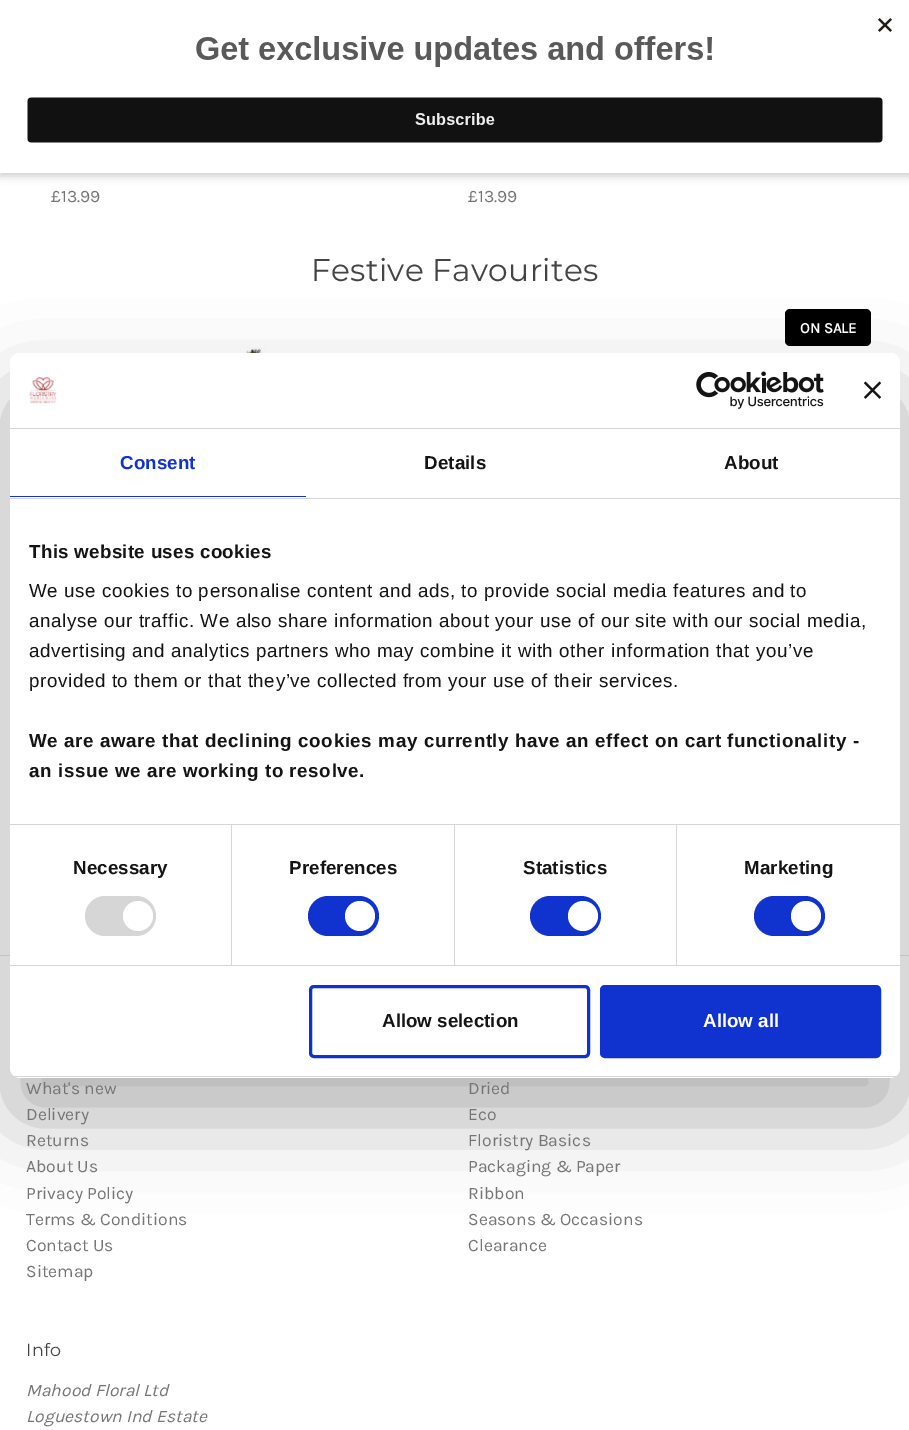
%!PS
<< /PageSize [909 1430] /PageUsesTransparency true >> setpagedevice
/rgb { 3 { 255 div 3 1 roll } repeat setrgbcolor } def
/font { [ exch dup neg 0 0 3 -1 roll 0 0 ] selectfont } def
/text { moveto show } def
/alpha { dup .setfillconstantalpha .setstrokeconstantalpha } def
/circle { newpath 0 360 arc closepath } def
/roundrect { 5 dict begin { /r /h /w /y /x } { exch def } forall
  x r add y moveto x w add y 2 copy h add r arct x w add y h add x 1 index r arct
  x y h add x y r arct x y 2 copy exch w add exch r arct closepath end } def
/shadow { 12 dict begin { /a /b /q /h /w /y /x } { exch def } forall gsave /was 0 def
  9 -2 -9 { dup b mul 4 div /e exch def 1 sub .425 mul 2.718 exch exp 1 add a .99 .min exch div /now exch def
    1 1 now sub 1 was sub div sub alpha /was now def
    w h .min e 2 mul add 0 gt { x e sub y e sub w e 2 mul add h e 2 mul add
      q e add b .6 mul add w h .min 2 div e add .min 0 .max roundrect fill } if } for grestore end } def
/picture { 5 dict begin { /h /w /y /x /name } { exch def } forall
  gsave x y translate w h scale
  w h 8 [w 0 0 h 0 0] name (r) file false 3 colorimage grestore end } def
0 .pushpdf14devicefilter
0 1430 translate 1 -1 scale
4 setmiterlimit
255 255 255 rgb
0 0 909 1430 rectfill
0 0 0 rgb
0 4 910 172 0 4 0.2 shadow
255 255 255 rgb
0 0 909 173 rectfill
(img_01.rgb) 27 18 865 125 picture
0 0 0 rgb
785 309 86 37 5 roundrect fill
(img_02.rgb) 164 347 167 6 picture
229 229 229 rgb
0 955 909 1 rectfill
0 0 0 rgb
10 393 890 725 10 42.5 0.3 shadow
255 255 255 rgb
10 353 890 725 10 roundrect fill
214 214 214 rgb
10 428 890 1 rectfill
(img_03.rgb) 29 377 28 27 picture
(img_04.rgb) 696 371 128 38 picture
(img_05.rgb) 864 381 17 18 picture
10 498 890 1 rectfill
16 50 207 rgb
10 496 296 1 rectfill
214 214 214 rgb
10 824 890 1 rectfill
10 965 890 1 rectfill
231 825 1 140 rectfill
85 896 71 40 20 roundrect fill
255 255 255 rgb
138 916 15 circle fill
214 214 214 rgb
454 825 1 140 rectfill
16 50 207 rgb
308 896 71 40 20 roundrect fill
255 255 255 rgb
360 916 15 circle fill
214 214 214 rgb
676 825 1 140 rectfill
16 50 207 rgb
530 896 71 40 20 roundrect fill
255 255 255 rgb
583 916 15 circle fill
16 50 207 rgb
754 896 71 40 20 roundrect fill
255 255 255 rgb
806 916 15 circle fill
gsave
10 353 890 725 10 roundrect clip newpath
214 214 214 rgb
10 1076 890 1 rectfill
grestore
16 50 207 rgb
3 setlinewidth
310.5 986.5 278 70 3.5 roundrect stroke
601.5 986.5 278 70 3.5 roundrect gsave fill grestore
stroke
/Karla-Regular 17.5 font
117 117 117 rgb
(£13.99) 51 202 text
(£13.99) 468 202 text
/Montserrat-Regular 31.25 font
68 68 68 rgb
311 281 moveto 0.3 0 (Festive Favourites) ashow
/Karla-Bold 15 font
255 255 255 rgb
(ON SALE) 800 333 text
/LiberationSans-Bold 18.75 font
16 50 207 rgb
120 469 moveto 0.1 0 (Consent) ashow
20 20 20 rgb
424 469 moveto 0.1 0 (Details) ashow
724 469 moveto 0.1 0 (About) ashow
29 558 moveto 0.3 0 (This website uses cookies) ashow
/LiberationSans-Regular 18.75 font
29 597 moveto 0.62 0 (We use cookies to personalise content and ads, to provide social media features and to) ashow
29 627 moveto 0.62 0 (analyse our traffic. We also share information about your use of our site with our social media,) ashow
29 657 moveto 0.62 0 (advertising and analytics partners who may combine it with other information that you’ve) ashow
29 687 moveto 0.62 0 (provided to them or that they’ve collected from your use of their services.) ashow
/LiberationSans-Bold 18.75 font
29 747 moveto 0.62 0 (We are aware that declining cookies may currently have an effect on cart functionality -) ashow
29 777 moveto 0.62 0 (an issue we are working to resolve.) ashow
73 874 moveto 0.1 0 (Necessary) ashow
289 874 moveto 0.1 0 (Preferences) ashow
523 874 moveto 0.1 0 (Statistics) ashow
744 874 moveto 0.1 0 (Marketing) ashow
(Allow selection) 382 1027 text
255 255 255 rgb
(Allow all) 703 1027 text
/Karla-Regular 17.5 font
117 117 117 rgb
(What's new) 26 1094 text
(Delivery) 26 1120 text
(Returns) 26 1146 text
(About Us) 26 1172 text
(Privacy Policy) 26 1199 text
(Terms & Conditions) 26 1225 text
(Contact Us) 26 1251 text
(Sitemap) 26 1277 text
(Dried) 468 1094 text
(Eco) 468 1120 text
(Floristry Basics) 468 1146 text
(Packaging & Paper) 468 1172 text
(Ribbon) 468 1199 text
(Seasons & Occasions) 468 1225 text
(Clearance) 468 1251 text
/Montserrat-Regular 17.5 font
68 68 68 rgb
26 1356 moveto 0.3 0 (Info) ashow
/Karla-Italic 17.5 font
117 117 117 rgb
(Mahood Floral Ltd) 26 1396 text
(Loguestown Ind Estate) 26 1422 text
.poppdf14devicefilter showpage
